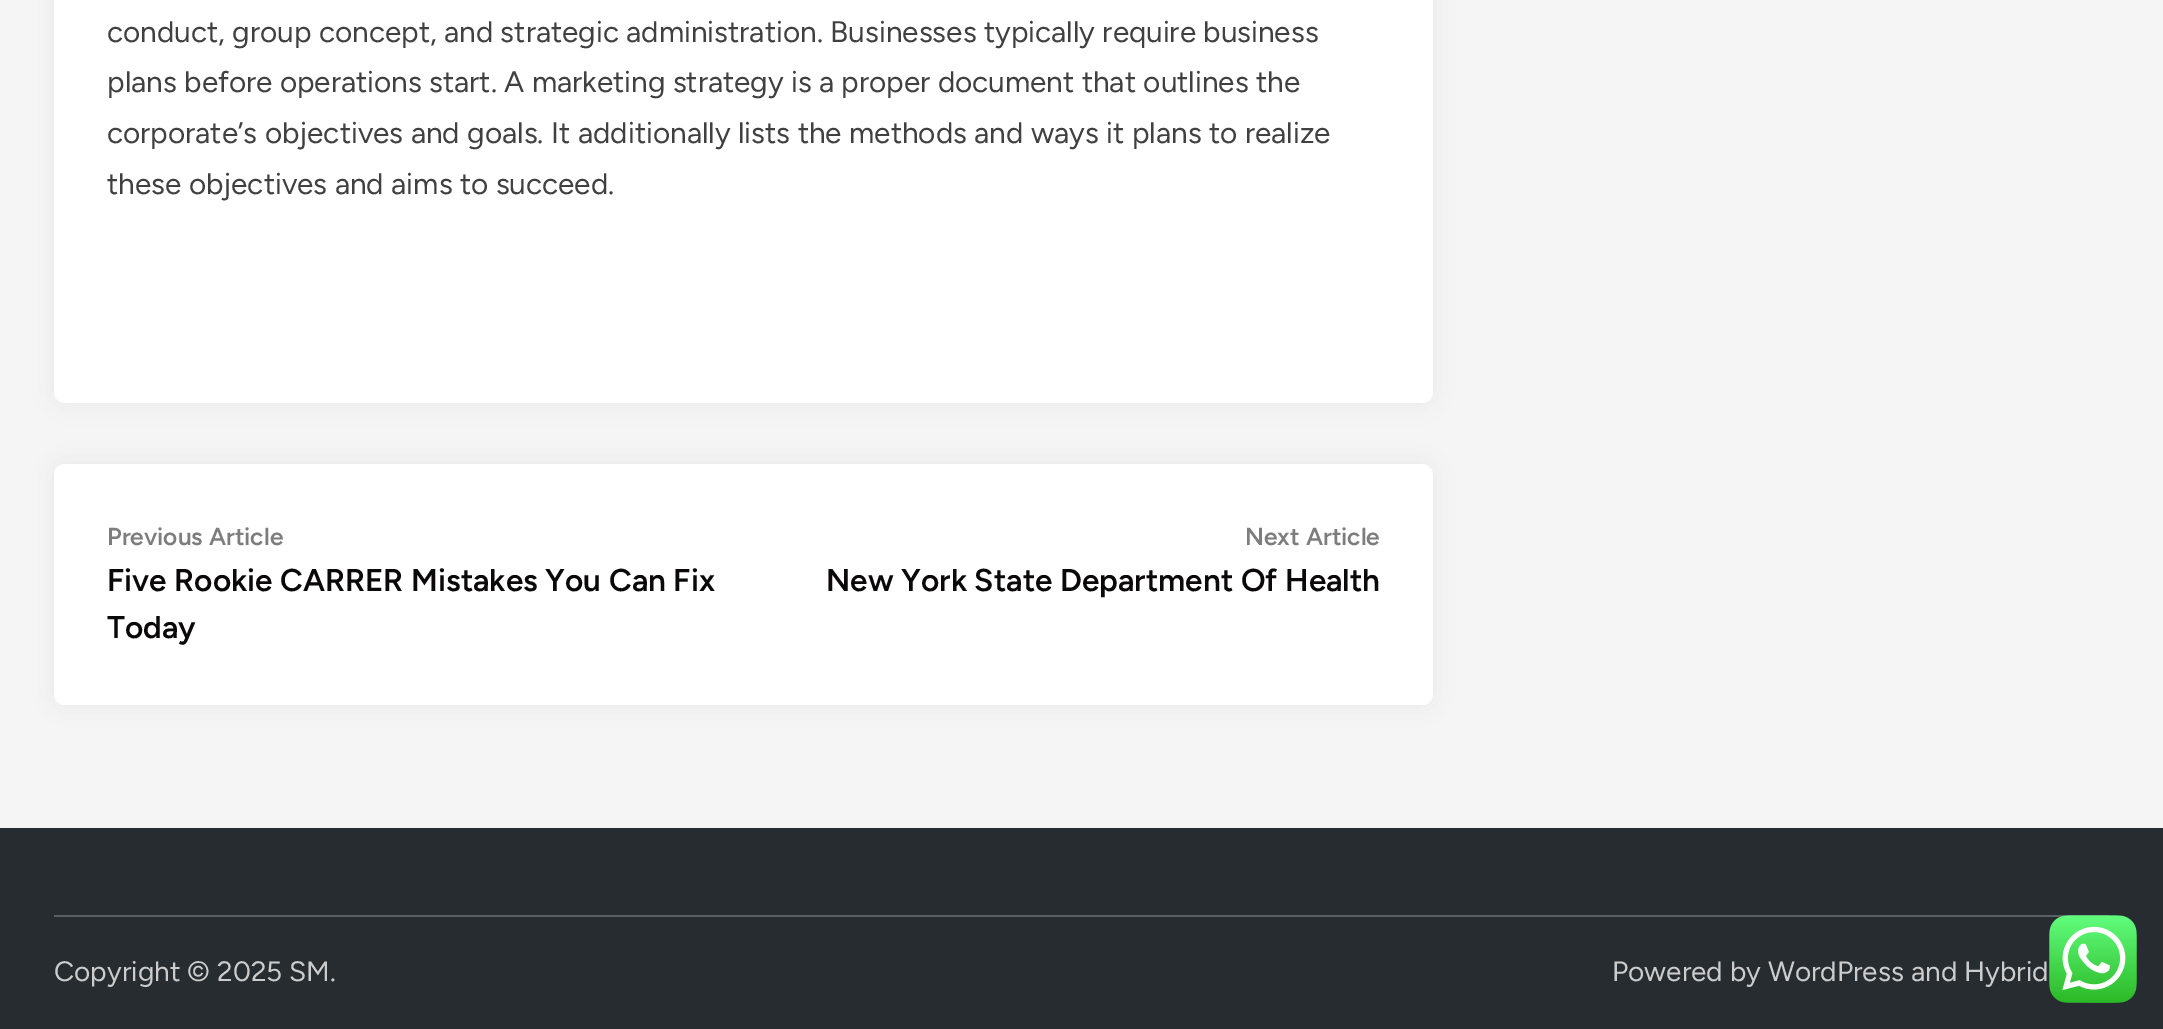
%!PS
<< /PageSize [2163 1029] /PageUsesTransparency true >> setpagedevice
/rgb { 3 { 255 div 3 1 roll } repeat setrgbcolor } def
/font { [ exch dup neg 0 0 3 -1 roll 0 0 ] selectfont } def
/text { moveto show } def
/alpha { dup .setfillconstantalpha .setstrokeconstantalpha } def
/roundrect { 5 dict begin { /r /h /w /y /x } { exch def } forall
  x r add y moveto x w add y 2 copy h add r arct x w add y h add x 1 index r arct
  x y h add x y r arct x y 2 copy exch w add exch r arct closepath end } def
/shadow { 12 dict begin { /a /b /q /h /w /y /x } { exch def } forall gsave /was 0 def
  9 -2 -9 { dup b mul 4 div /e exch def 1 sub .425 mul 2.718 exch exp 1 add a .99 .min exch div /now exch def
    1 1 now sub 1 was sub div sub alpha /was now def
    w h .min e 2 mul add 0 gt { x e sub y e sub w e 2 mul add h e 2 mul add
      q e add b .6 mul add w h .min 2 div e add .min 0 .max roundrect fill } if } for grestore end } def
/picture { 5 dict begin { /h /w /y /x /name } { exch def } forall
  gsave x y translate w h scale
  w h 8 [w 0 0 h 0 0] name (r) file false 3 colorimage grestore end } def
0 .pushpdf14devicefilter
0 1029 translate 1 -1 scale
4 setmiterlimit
245 245 245 rgb
0 0 2163 1029 rectfill
0 0 0 rgb
54 -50 1379 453 11 13 0.06 shadow
255 255 255 rgb
54 -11 1379 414 11 roundrect fill
0 0 0 rgb
54 464 1379 241 11 13 0.06 shadow
255 255 255 rgb
54 464 1379 241 11 roundrect fill
39 44 48 rgb
0 828 2163 201 rectfill
89 95 100 rgb
54 915 2055 2 rectfill
(img_01.rgb) 2049 915 88 88 picture
/Figtree-Regular 29.75 font
64 64 64 rgb
(conduct, group concept, and strategic administration. Businesses typically require business) 107 42 text
(plans before operations start. A marketing strategy is a proper document that outlines the) 107 92 text
(corporate’s objectives and goals. It additionally lists the methods and ways it plans to realize) 107 143 text
(these objectives and aims to succeed.) 107 194 text
/Figtree-SemiBold 24.5 font
125 125 125 rgb
(Previous Article) 107 545 text
/Figtree-SemiBold 31.5 font
10 8 8 rgb
(Five Rookie CARRER Mistakes You Can Fix) 107 591 text
(Today) 107 638 text
/Figtree-SemiBold 24.5 font
125 125 125 rgb
(Next Article) 1245 545 text
/Figtree-SemiBold 31.5 font
10 8 8 rgb
(New York State Department Of Health) 826 591 text
/Figtree-Regular 28 font
204 204 204 rgb
(Copyright © 2025 SM.) 54 981 text
(Powered by WordPress and Hybrid) 1612 981 text
.poppdf14devicefilter showpage
